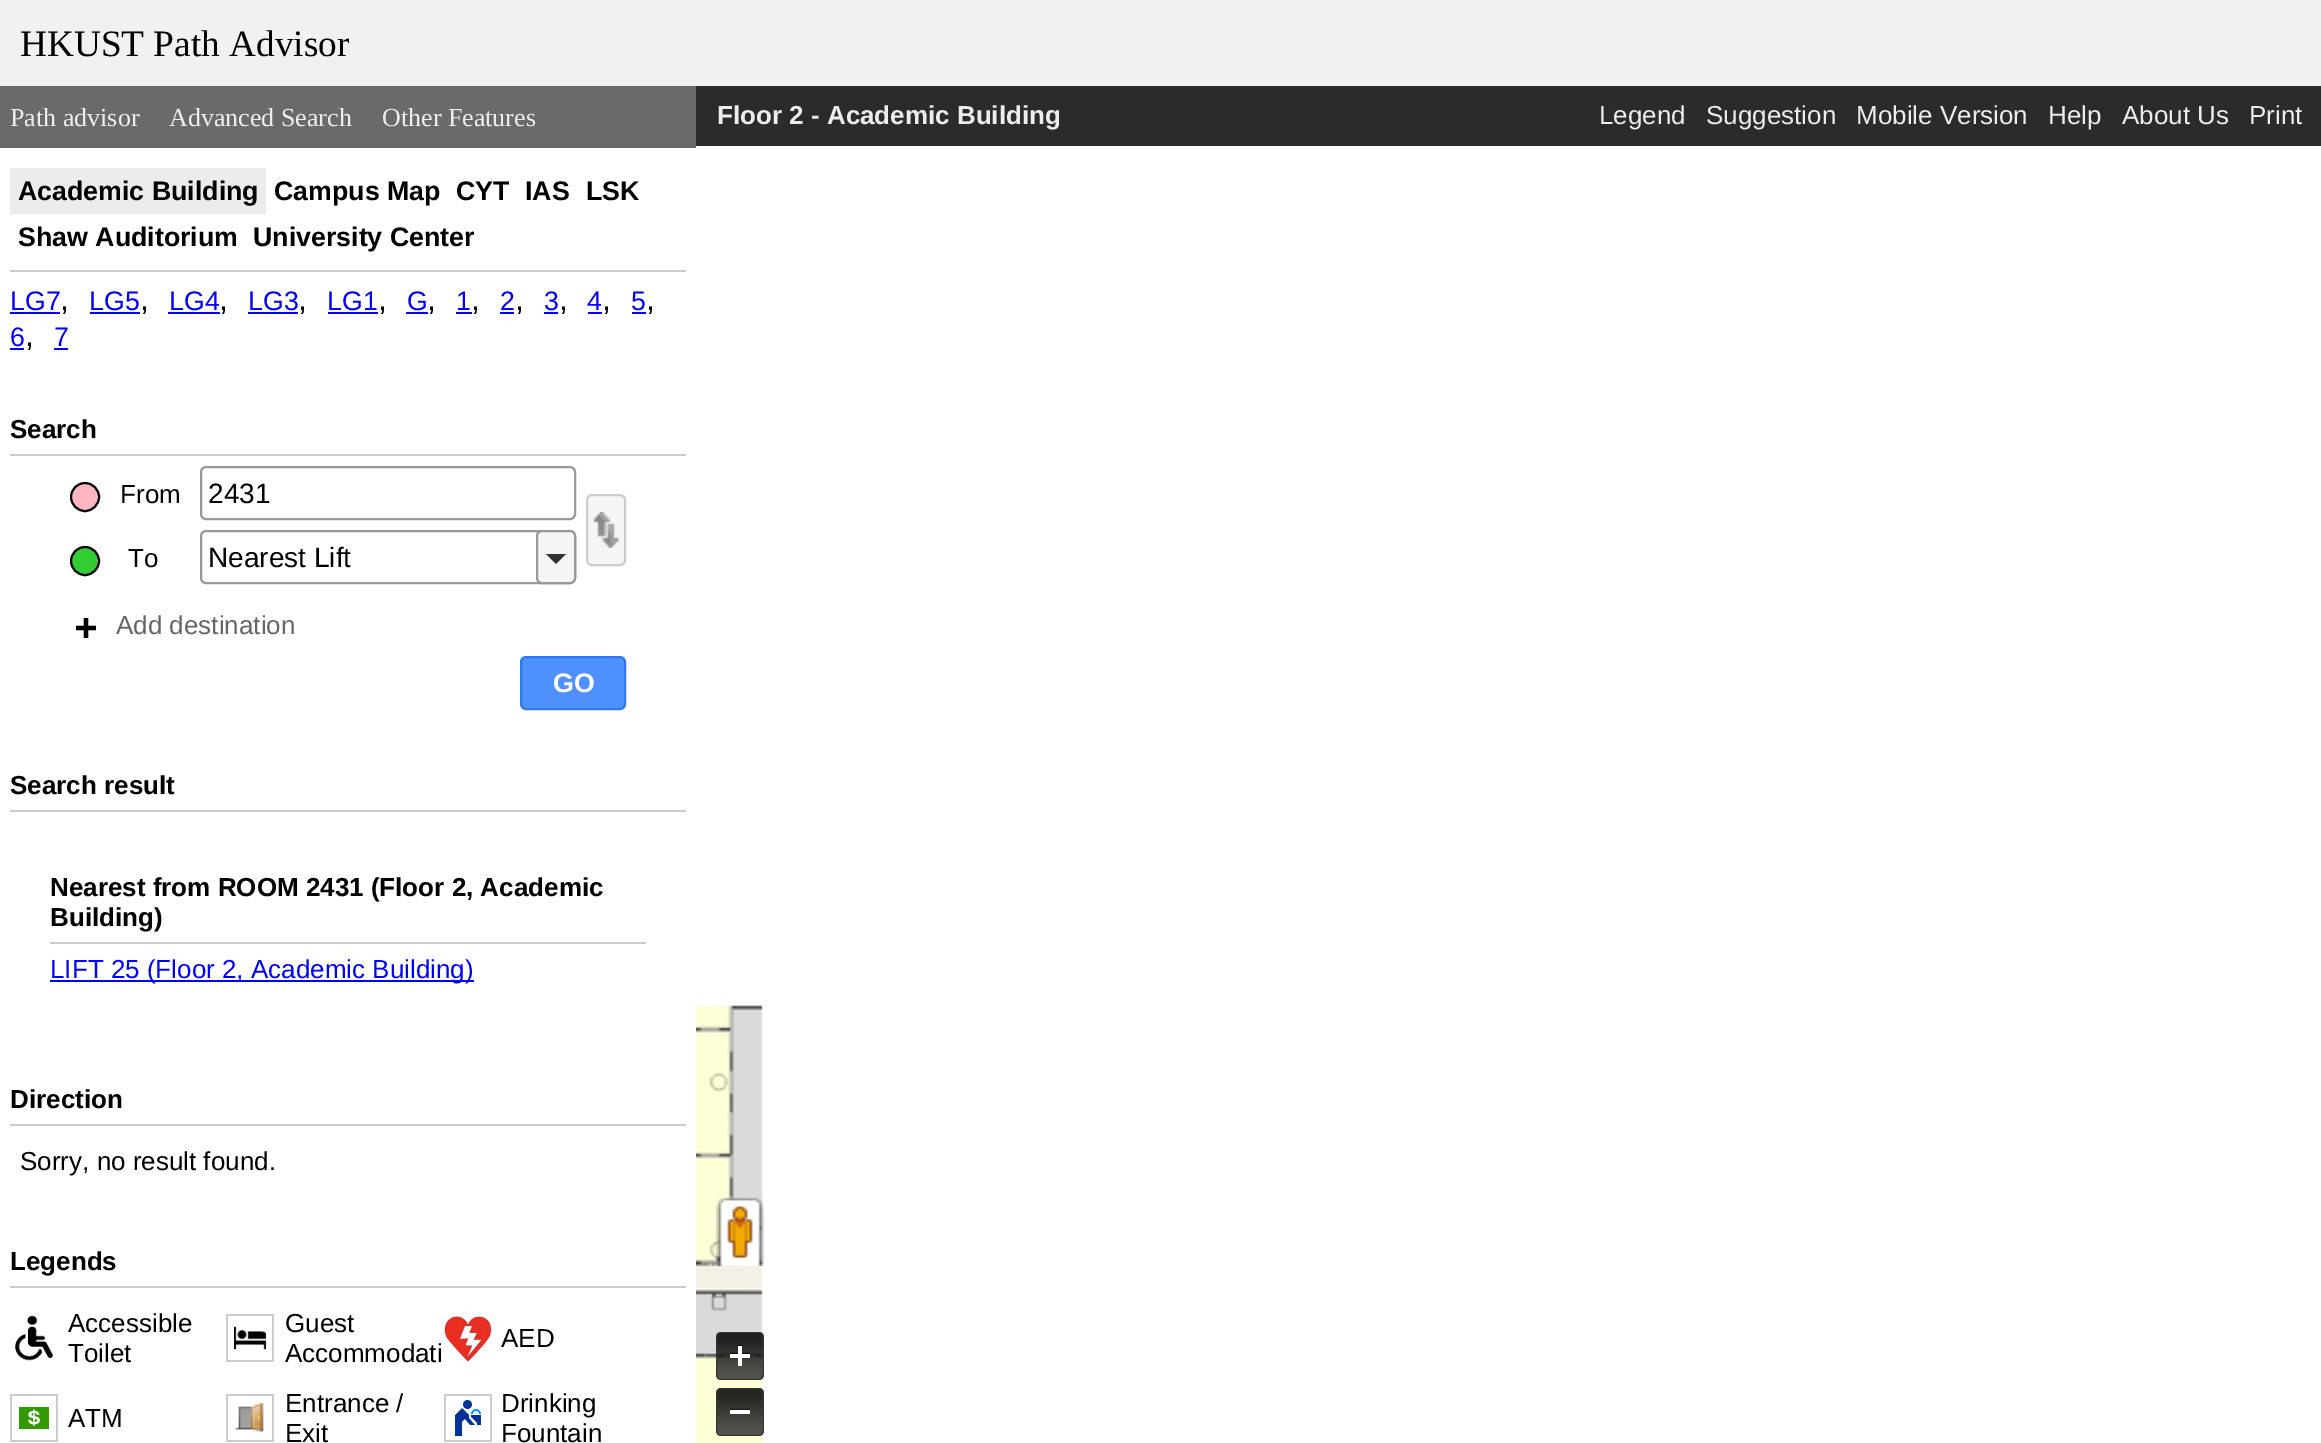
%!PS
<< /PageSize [2321 1443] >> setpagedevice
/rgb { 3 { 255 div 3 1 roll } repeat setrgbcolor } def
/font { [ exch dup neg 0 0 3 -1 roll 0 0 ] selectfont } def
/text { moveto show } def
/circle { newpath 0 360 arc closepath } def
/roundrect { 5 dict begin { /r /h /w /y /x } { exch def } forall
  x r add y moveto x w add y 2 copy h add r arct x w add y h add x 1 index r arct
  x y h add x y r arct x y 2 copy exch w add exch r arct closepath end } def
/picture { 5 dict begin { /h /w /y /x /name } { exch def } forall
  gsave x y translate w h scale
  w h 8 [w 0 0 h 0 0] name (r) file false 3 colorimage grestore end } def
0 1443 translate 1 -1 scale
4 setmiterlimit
255 255 255 rgb
0 0 2321 1443 rectfill
241 241 241 rgb
0 0 2321 86 rectfill
106 106 106 rgb
0 86 696 62 rectfill
204 204 204 rgb
10 270 676 2 rectfill
236 236 236 rgb
10 168 256 46 rectfill
0 0 255 rgb
10 312 50 2 rectfill
90 312 50 2 rectfill
168 312 52 2 rectfill
248 312 50 2 rectfill
328 312 50 2 rectfill
406 312 22 2 rectfill
456 312 16 2 rectfill
500 312 14 2 rectfill
544 312 14 2 rectfill
588 312 14 2 rectfill
632 312 14 2 rectfill
10 348 14 2 rectfill
54 348 14 2 rectfill
204 204 204 rgb
10 454 676 2 rectfill
255 182 193 rgb
85 497 14 circle gsave fill grestore
0 0 0 rgb
2 setlinewidth
stroke
153 153 153 rgb
201 467 374 52 5 roundrect stroke
50 205 50 rgb
85 561 14 circle gsave fill grestore
0 0 0 rgb
stroke
153 153 153 rgb
201 531 374 52 5 roundrect stroke
245 245 245 rgb
537 531 38 52 5 roundrect gsave fill grestore
153 153 153 rgb
stroke
51 51 51 rgb
546 554 moveto 20 0 rlineto -10 10 rlineto closepath fill
245 245 245 rgb
587 495 38 70 5 roundrect gsave fill grestore
204 204 204 rgb
stroke
(img_01.rgb) 593 512 27 36 picture
(img_02.rgb) 76 618 20 20 picture
77 144 254 rgb
521 657 104 52 5 roundrect gsave fill grestore
48 121 237 rgb
stroke
204 204 204 rgb
10 810 676 2 rectfill
50 942 596 2 rectfill
0 0 255 rgb
50 980 424 2 rectfill
204 204 204 rgb
10 1124 676 2 rectfill
10 1286 676 2 rectfill
(img_03.rgb) 15 1315 38 46 picture
(img_04.rgb) 226 1314 48 48 picture
(img_05.rgb) 444 1315 48 47 picture
(img_06.rgb) 10 1394 48 48 picture
(img_07.rgb) 226 1394 48 48 picture
(img_08.rgb) 444 1394 48 48 picture
43 43 43 rgb
696 86 1625 60 rectfill
(img_09.rgb) 696 1005 67 438 picture
(img_10.rgb) 716 1197 48 69 picture
(img_11.rgb) 716 1332 48 48 picture
(img_12.rgb) 716 1388 48 48 picture
/LiberationSerif-Regular 37.25 font
0 0 0 rgb
(HKUST Path Advisor) 20 56 text
/LiberationSerif-Regular 26 font
237 237 237 rgb
(Path advisor) 10 126 text
(Advanced Search) 169 126 text
(Other Features) 382 126 text
/LiberationSans-Bold 26.75 font
0 0 0 rgb
(Academic Building) 18 200 text
(Campus Map) 274 200 text
(CYT) 456 200 text
(IAS) 525 200 text
(LSK) 586 200 text
(Shaw Auditorium) 18 246 text
(University Center) 253 246 text
/LiberationSans-Regular 26.75 font
0 0 255 rgb
(LG7) 10 310 text
/LiberationSans-Regular 32 font
0 0 0 rgb
(,) 60 310 text
/LiberationSans-Regular 26.75 font
0 0 255 rgb
(LG5) 89 310 text
/LiberationSans-Regular 32 font
0 0 0 rgb
(,) 140 310 text
/LiberationSans-Regular 26.75 font
0 0 255 rgb
(LG4) 169 310 text
/LiberationSans-Regular 32 font
0 0 0 rgb
(,) 219 310 text
/LiberationSans-Regular 26.75 font
0 0 255 rgb
(LG3) 248 310 text
/LiberationSans-Regular 32 font
0 0 0 rgb
(,) 298 310 text
/LiberationSans-Regular 26.75 font
0 0 255 rgb
(LG1) 327 310 text
/LiberationSans-Regular 32 font
0 0 0 rgb
(,) 378 310 text
/LiberationSans-Regular 26.75 font
0 0 255 rgb
(G) 407 310 text
/LiberationSans-Regular 32 font
0 0 0 rgb
(,) 427 310 text
/LiberationSans-Regular 26.75 font
0 0 255 rgb
(1) 456 310 text
/LiberationSans-Regular 32 font
0 0 0 rgb
(,) 471 310 text
/LiberationSans-Regular 26.75 font
0 0 255 rgb
(2) 500 310 text
/LiberationSans-Regular 32 font
0 0 0 rgb
(,) 515 310 text
/LiberationSans-Regular 26.75 font
0 0 255 rgb
(3) 544 310 text
/LiberationSans-Regular 32 font
0 0 0 rgb
(,) 559 310 text
/LiberationSans-Regular 26.75 font
0 0 255 rgb
(4) 587 310 text
/LiberationSans-Regular 32 font
0 0 0 rgb
(,) 602 310 text
/LiberationSans-Regular 26.75 font
0 0 255 rgb
(5) 631 310 text
/LiberationSans-Regular 32 font
0 0 0 rgb
(,) 646 310 text
/LiberationSans-Regular 26.75 font
0 0 255 rgb
(6) 10 346 text
/LiberationSans-Regular 32 font
0 0 0 rgb
(,) 25 346 text
/LiberationSans-Regular 26.75 font
0 0 255 rgb
(7) 54 346 text
/LiberationSans-Bold 26 font
0 0 0 rgb
(Search) 10 438 text
/LiberationSans-Regular 26 font
(From) 120 503 text
/LiberationSans-Regular 28 font
(2431) 208 503 text
/LiberationSans-Regular 26 font
(To) 128 567 text
/LiberationSans-Regular 28 font
(Nearest Lift) 208 567 text
/LiberationSans-Regular 26 font
102 102 102 rgb
(Add destination) 116 634 text
/LiberationSans-Bold 26.75 font
255 255 255 rgb
(GO) 553 692 text
/LiberationSans-Bold 26 font
0 0 0 rgb
(Search result) 10 794 text
(Nearest from ROOM 2431 \(Floor 2, Academic) 50 896 text
(Building\)) 50 926 text
/LiberationSans-Regular 26 font
0 0 255 rgb
(LIFT 25 \(Floor 2, Academic Building\)) 50 978 text
/LiberationSans-Bold 26 font
0 0 0 rgb
(Direction) 10 1108 text
/LiberationSans-Regular 26 font
(Sorry, no result found.) 20 1170 text
/LiberationSans-Bold 26 font
(Legends) 10 1270 text
/LiberationSans-Regular 26 font
(Accessible) 68 1332 text
(Toilet) 68 1362 text
(Guest) 285 1332 text
(Accommodati) 285 1362 text
(AED) 501 1347 text
(ATM) 68 1427 text
(Entrance /) 285 1412 text
(Exit) 285 1442 text
(Drinking) 501 1412 text
(Fountain) 501 1442 text
/LiberationSans-Bold 26 font
237 237 237 rgb
(Floor 2 - Academic Building) 717 124 text
/LiberationSans-Regular 26 font
(Legend) 1599 124 text
(Suggestion) 1706 124 text
(Mobile Version) 1856 124 text
(Help) 2048 124 text
(About Us) 2122 124 text
(Print) 2249 124 text
showpage
